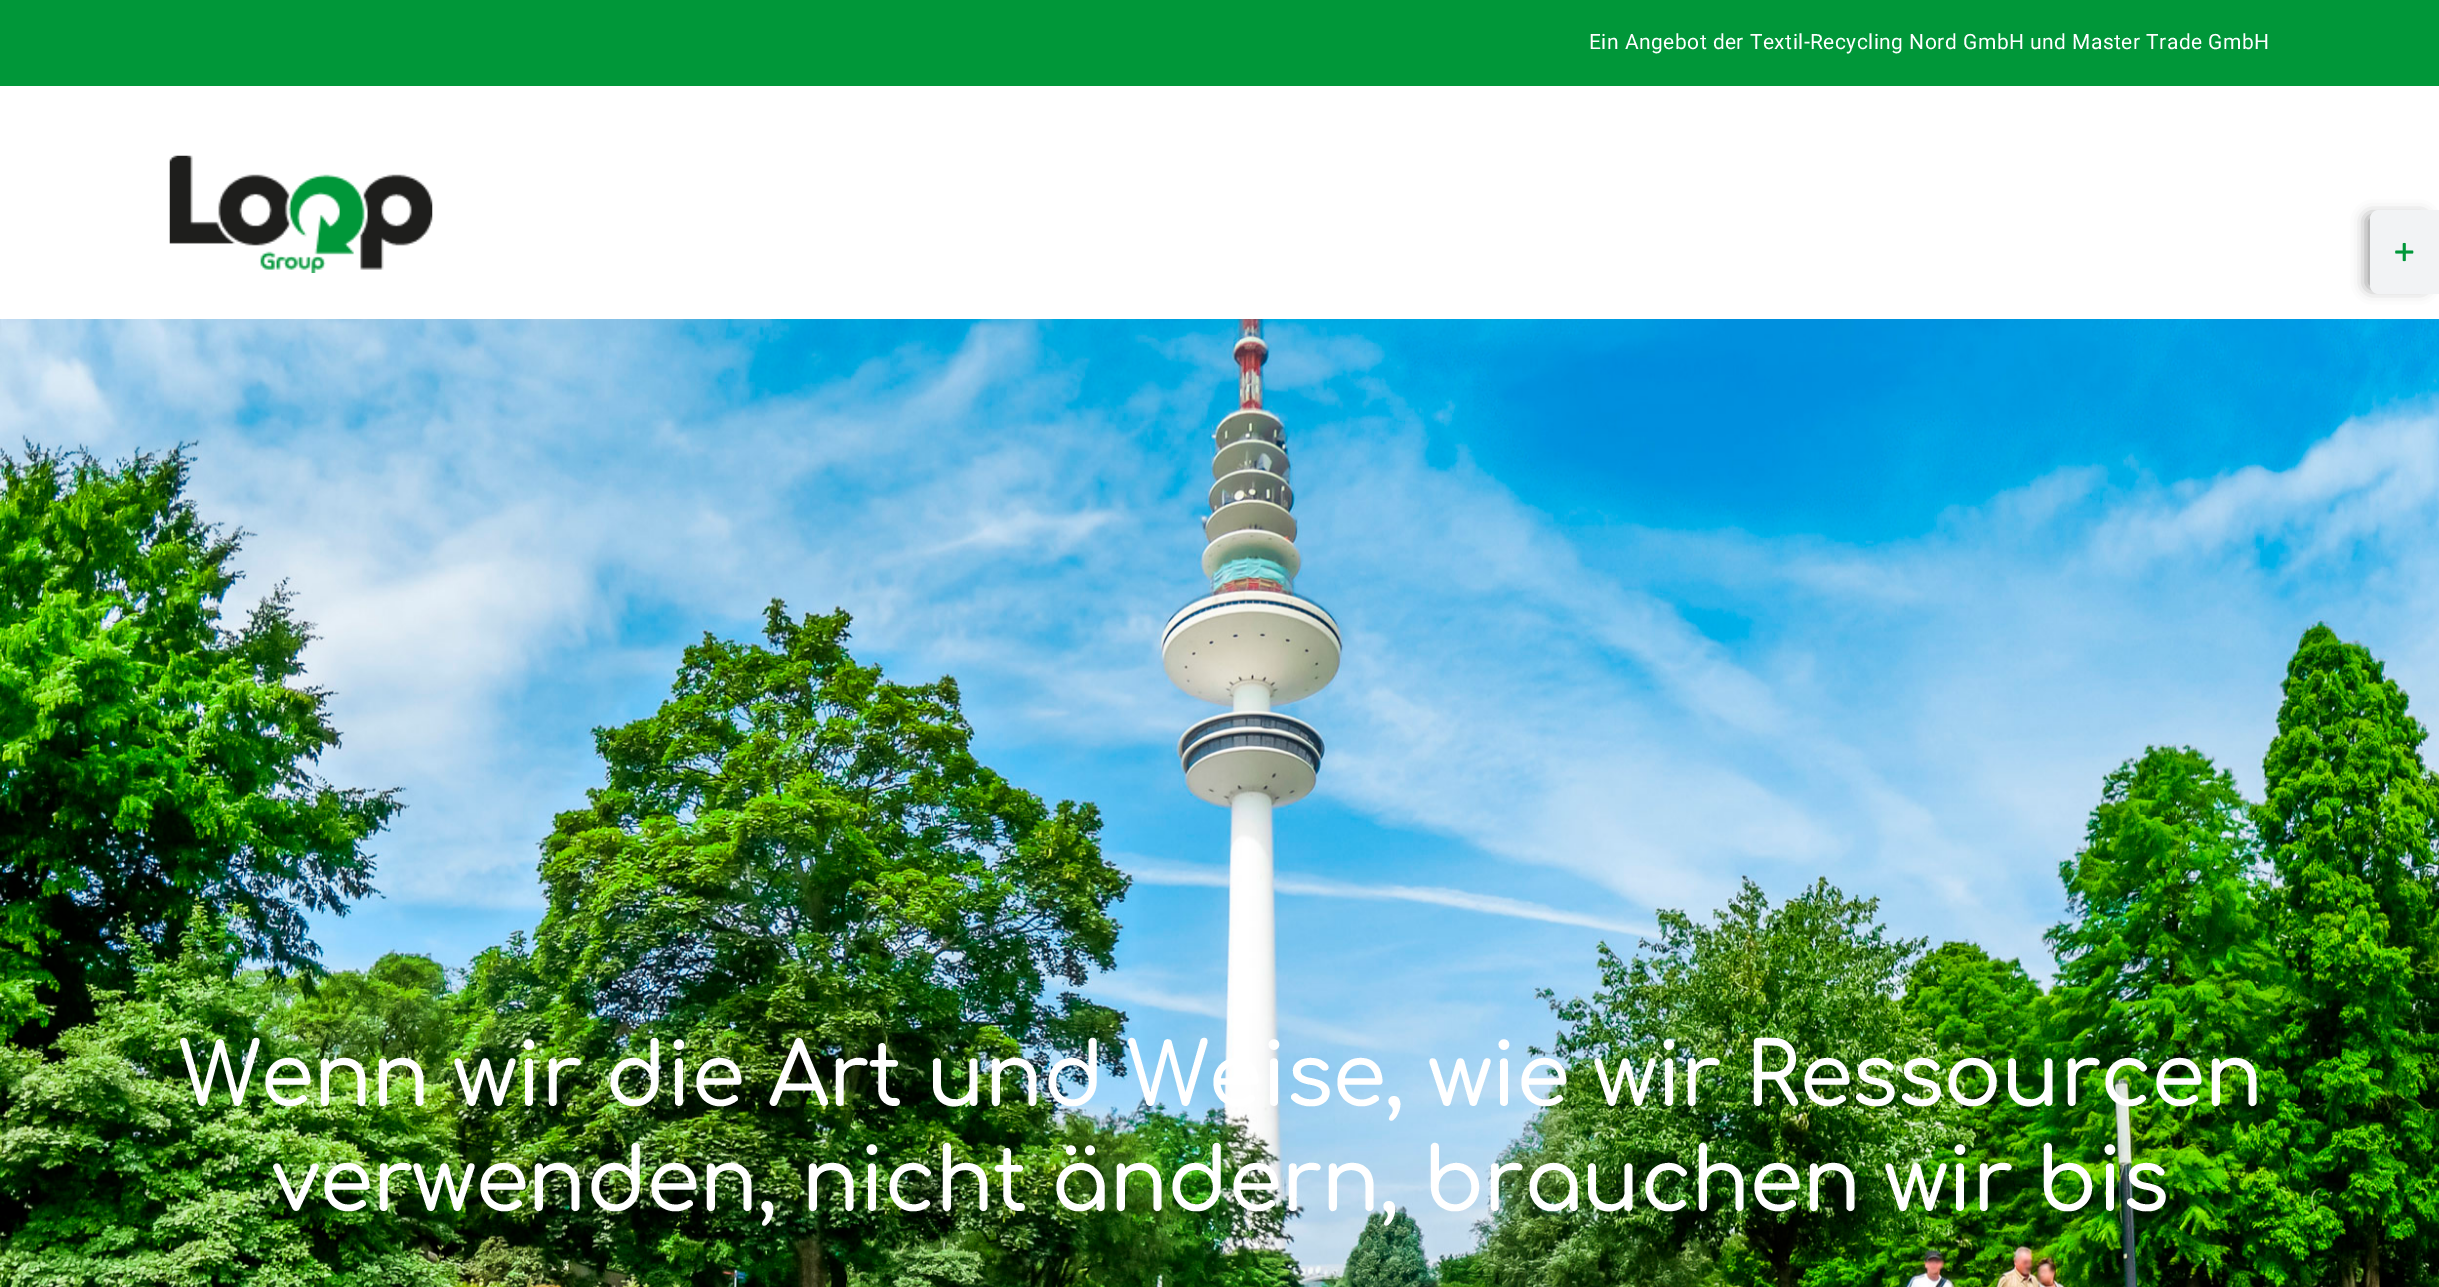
%!PS
<< /PageSize [2439 1287] /PageUsesTransparency true >> setpagedevice
/rgb { 3 { 255 div 3 1 roll } repeat setrgbcolor } def
/font { [ exch dup neg 0 0 3 -1 roll 0 0 ] selectfont } def
/alpha { dup .setfillconstantalpha .setstrokeconstantalpha } def
/roundrect { 5 dict begin { /r /h /w /y /x } { exch def } forall
  x r add y moveto x w add y 2 copy h add r arct x w add y h add x 1 index r arct
  x y h add x y r arct x y 2 copy exch w add exch r arct closepath end } def
/shadow { 12 dict begin { /a /b /q /h /w /y /x } { exch def } forall gsave /was 0 def
  9 -2 -9 { dup b mul 4 div /e exch def 1 sub .425 mul 2.718 exch exp 1 add a .99 .min exch div /now exch def
    1 1 now sub 1 was sub div sub alpha /was now def
    w h .min e 2 mul add 0 gt { x e sub y e sub w e 2 mul add h e 2 mul add
      q e add b .6 mul add w h .min 2 div e add .min 0 .max roundrect fill } if } for grestore end } def
/picture { 5 dict begin { /h /w /y /x /name } { exch def } forall
  gsave x y translate w h scale
  w h 8 [w 0 0 h 0 0] name (r) file false 3 colorimage grestore end } def
0 .pushpdf14devicefilter
0 1287 translate 1 -1 scale
4 setmiterlimit
255 255 255 rgb
0 0 2439 1287 rectfill
0 151 57 rgb
0 0 2439 86 rectfill
(img_01.rgb) 169 155 264 118 picture
0 0 0 rgb
2366 215 60 74 4 7 0.4 shadow
242 243 245 rgb
2379 210 moveto 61 0 rlineto 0 84 rlineto -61 0 rlineto -5 0 -9 -4 -9 -9 rcurveto 0 -66 rlineto 0 -5 4 -9 9 -9 rcurveto closepath fill
(img_02.rgb) 2395 242 19 20 picture
(img_03.rgb) 0 319 2439 968 picture
/Roboto-Regular 21 font
255 255 255 rgb
1589 49 moveto 0.47 0 (Ein Angebot der Textil-Recycling Nord GmbH und Master Trade GmbH) ashow
/Comfortaa-SemiBold 87.5 font
179 1106 moveto -1.3 0 (Wenn wir die Art und Weise, wie wir Ressourcen) ashow
272 1211 moveto -1.3 0 (verwenden, nicht ändern, brauchen wir bis) ashow
.poppdf14devicefilter showpage
